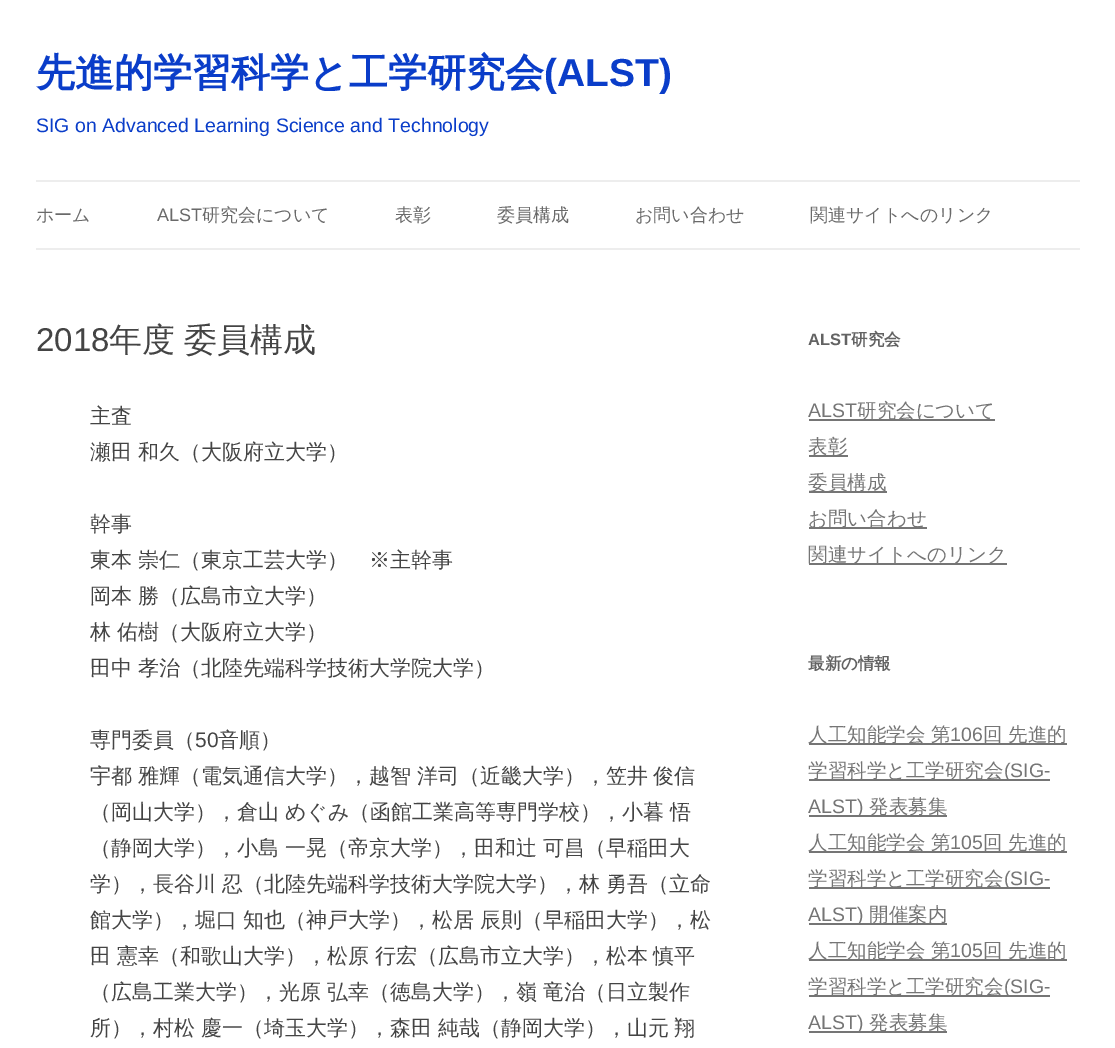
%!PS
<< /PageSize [1115 1048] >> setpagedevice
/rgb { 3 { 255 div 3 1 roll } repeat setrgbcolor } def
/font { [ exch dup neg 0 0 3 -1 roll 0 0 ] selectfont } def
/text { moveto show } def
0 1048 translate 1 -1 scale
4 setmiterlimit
255 255 255 rgb
0 0 1115 1048 rectfill
237 237 237 rgb
36 180 1044 2 rectfill
36 248 1044 2 rectfill
117 117 117 rgb
809 419 186 2 rectfill
809 455 39 2 rectfill
809 491 78 2 rectfill
809 527 118 2 rectfill
809 563 198 2 rectfill
809 743 258 2 rectfill
809 779 241 2 rectfill
809 815 138 2 rectfill
809 851 258 2 rectfill
809 887 241 2 rectfill
809 923 138 2 rectfill
809 959 258 2 rectfill
809 995 241 2 rectfill
809 1031 138 2 rectfill
/WenQuanYiZenHei-Bold 39 font
10 61 201 rgb
(先進的学習科学と工学研究会) 36 86 text
/LiberationSans-Bold 39 font
(\(ALST\)) 544 86 text
/LiberationSans-Regular 19.5 font
(SIG on Advanced Learning Science and Technology) 36 132 text
/WenQuanYiZenHei-Medium 18 font
106 106 106 rgb
(ホーム) 36 221 text
/LiberationSans-Regular 18 font
(ALST) 157 221 text
/WenQuanYiZenHei-Medium 18 font
(研究会について) 202 221 text
(表彰) 395 221 text
(委員構成) 497 221 text
(お問い合わせ) 635 221 text
(関連サイトへのリンク) 810 221 text
/LiberationSans-Regular 33 font
68 68 68 rgb
(2018) 36 351 text
/WenQuanYiZenHei-Medium 33 font
109 351 moveto -1 0 32 (年度 委員構成) widthshow
/WenQuanYiZenHei-Medium 21 font
(主査) 90 423 text
90 459 moveto -0.5 0 32 (瀬田 和久（大阪府立大学）) widthshow
(幹事) 90 531 text
90 567 moveto -0.5 0 32 (東本 崇仁（東京工芸大学）　※主幹事) widthshow
90 603 moveto -0.5 0 32 (岡本 勝（広島市立大学）) widthshow
90 639 moveto -0.5 0 32 (林 佑樹（大阪府立大学）) widthshow
90 675 moveto -0.5 0 32 (田中 孝治（北陸先端科学技術大学院大学）) widthshow
(専門委員（) 90 747 text
/LiberationSans-Regular 21 font
(50) 195 747 text
/WenQuanYiZenHei-Medium 21 font
(音順）) 218 747 text
90 783 moveto -0.5 0 32 (宇都 雅輝（電気通信大学），越智 洋司（近畿大学），笠井 俊信) widthshow
90 819 moveto -0.5 0 32 (（岡山大学），倉山 めぐみ（函館工業高等専門学校），小暮 悟) widthshow
90 855 moveto -0.5 0 32 (（静岡大学），小島 一晃（帝京大学），田和辻 可昌（早稲田大) widthshow
90 891 moveto -0.5 0 32 (学），長谷川 忍（北陸先端科学技術大学院大学），林 勇吾（立命) widthshow
90 927 moveto -0.5 0 32 (館大学），堀口 知也（神戸大学），松居 辰則（早稲田大学），松) widthshow
90 963 moveto -0.5 0 32 (田 憲幸（和歌山大学），松原 行宏（広島市立大学），松本 慎平) widthshow
90 999 moveto -0.5 0 32 (（広島工業大学），光原 弘幸（徳島大学），嶺 竜治（日立製作) widthshow
90 1035 moveto -0.5 0 32 (所），村松 慶一（埼玉大学），森田 純哉（静岡大学），山元 翔) widthshow
/LiberationSans-Bold 16.5 font
99 99 99 rgb
(ALST) 808 345 text
/WenQuanYiZenHei-Bold 16.5 font
(研究会) 851 345 text
/LiberationSans-Regular 19.5 font
117 117 117 rgb
(ALST) 808 417 text
/WenQuanYiZenHei-Medium 19.5 font
(研究会について) 857 417 text
(表彰) 808 453 text
(委員構成) 808 489 text
(お問い合わせ) 808 525 text
(関連サイトへのリンク) 808 561 text
/WenQuanYiZenHei-Bold 16.5 font
99 99 99 rgb
(最新の情報) 808 669 text
/WenQuanYiZenHei-Medium 19.5 font
117 117 117 rgb
(人工知能学会 第) 808 741 text
/LiberationSans-Regular 19.5 font
(106) 950 741 text
/WenQuanYiZenHei-Medium 19.5 font
(回 先進的) 983 741 text
(学習科学と工学研究会) 808 777 text
/LiberationSans-Regular 19.5 font
(\(SIG-) 1004 777 text
(ALST\)) 808 813 text
/WenQuanYiZenHei-Medium 19.5 font
(発表募集) 869 813 text
(人工知能学会 第) 808 849 text
/LiberationSans-Regular 19.5 font
(105) 950 849 text
/WenQuanYiZenHei-Medium 19.5 font
(回 先進的) 983 849 text
(学習科学と工学研究会) 808 885 text
/LiberationSans-Regular 19.5 font
(\(SIG-) 1004 885 text
(ALST\)) 808 921 text
/WenQuanYiZenHei-Medium 19.5 font
(開催案内) 869 921 text
(人工知能学会 第) 808 957 text
/LiberationSans-Regular 19.5 font
(105) 950 957 text
/WenQuanYiZenHei-Medium 19.5 font
(回 先進的) 983 957 text
(学習科学と工学研究会) 808 993 text
/LiberationSans-Regular 19.5 font
(\(SIG-) 1004 993 text
(ALST\)) 808 1029 text
/WenQuanYiZenHei-Medium 19.5 font
(発表募集) 869 1029 text
showpage
